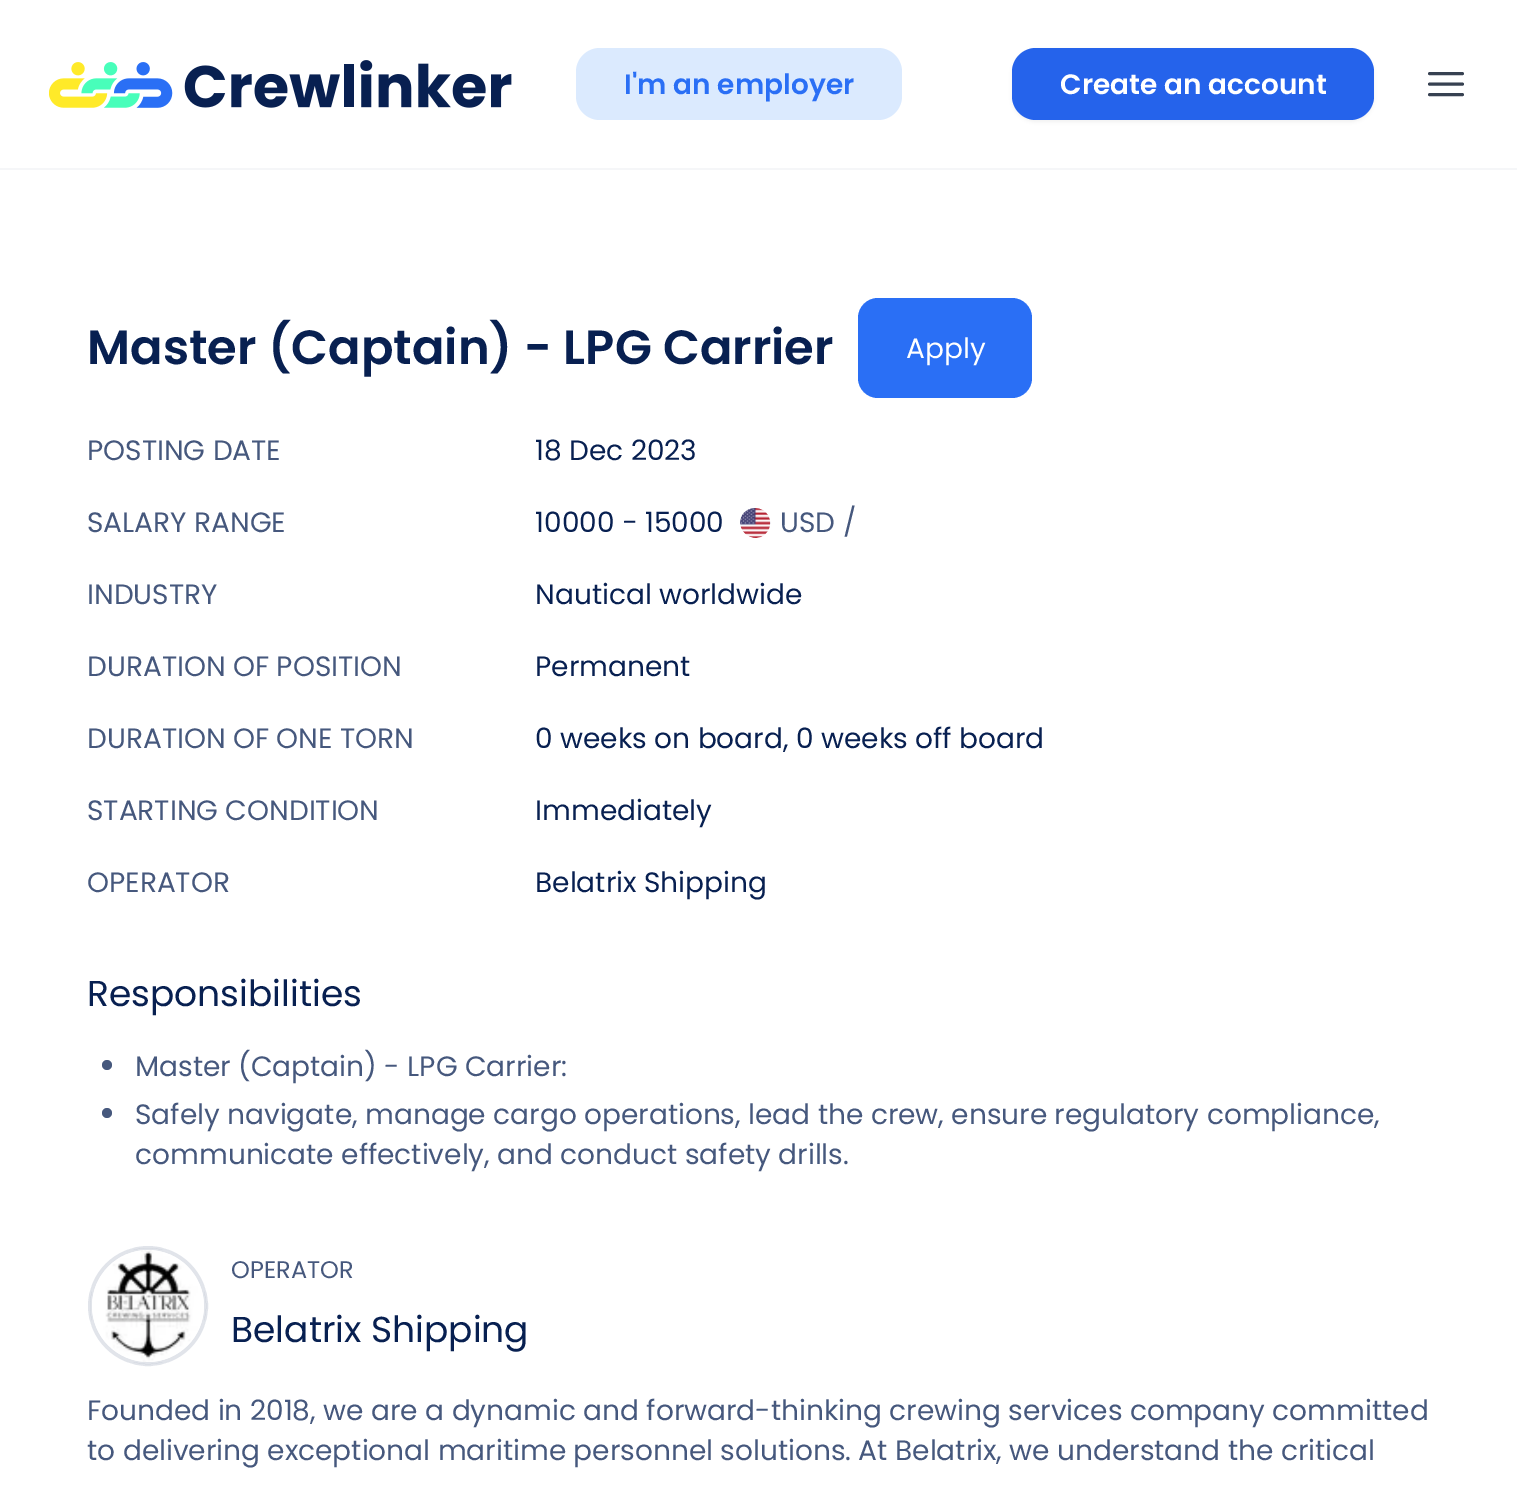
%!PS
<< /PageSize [1517 1488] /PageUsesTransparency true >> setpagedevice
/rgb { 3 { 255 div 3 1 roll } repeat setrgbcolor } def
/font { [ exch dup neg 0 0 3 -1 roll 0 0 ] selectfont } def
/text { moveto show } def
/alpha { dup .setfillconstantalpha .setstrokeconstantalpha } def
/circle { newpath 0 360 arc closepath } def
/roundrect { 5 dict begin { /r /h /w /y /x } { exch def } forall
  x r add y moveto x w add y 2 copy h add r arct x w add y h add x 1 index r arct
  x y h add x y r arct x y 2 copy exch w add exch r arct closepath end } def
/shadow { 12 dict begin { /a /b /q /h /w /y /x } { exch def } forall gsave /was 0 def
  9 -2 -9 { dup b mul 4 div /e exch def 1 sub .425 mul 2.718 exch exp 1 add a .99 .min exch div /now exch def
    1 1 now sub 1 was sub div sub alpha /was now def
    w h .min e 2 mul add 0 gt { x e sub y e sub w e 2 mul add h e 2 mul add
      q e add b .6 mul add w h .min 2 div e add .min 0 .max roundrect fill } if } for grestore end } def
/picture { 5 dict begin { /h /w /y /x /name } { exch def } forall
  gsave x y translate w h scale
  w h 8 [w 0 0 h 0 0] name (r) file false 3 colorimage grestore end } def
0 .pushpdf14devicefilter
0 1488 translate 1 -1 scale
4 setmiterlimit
255 255 255 rgb
0 0 1517 1488 rectfill
245 246 248 rgb
0 168 1517 2 rectfill
(img_01.rgb) 49 60 463 48 picture
219 234 254 rgb
576 48 326 72 24 roundrect fill
0 0 0 rgb
1012 50 362 72 24 2 0.05 shadow
37 99 235 rgb
1012 48 362 72 24 roundrect fill
55 65 81 rgb
3 setlinewidth
1 setlinecap
1 setlinejoin
1429.5 73.5 moveto 33 0 rlineto 1429.5 84 moveto 33 0 rlineto 1429.5 94.5 moveto 33 0 rlineto stroke
42 111 245 rgb
858 298 174 100 20 roundrect fill
(img_02.rgb) 740 508 31 30 picture
70 88 125 rgb
107 1065 5 circle fill
107 1113 5 circle fill
225 228 234 rgb
2 setlinewidth
0 setlinecap
0 setlinejoin
148 1306 59 circle stroke
0.12 alpha
8 32 81 rgb
148 1306 57 circle stroke
1 alpha
(img_03.rgb) 92 1250 112 112 picture
/Poppins-SemiBold 28 font
42 111 245 rgb
(I'm an employer) 624 94 text
255 255 255 rgb
(Create an account) 1060 94 text
/Poppins-SemiBold 48 font
8 32 81 rgb
(Master \(Captain\) - LPG Carrier) 87 364 text
/Poppins-Regular 28 font
255 255 255 rgb
(Apply) 906 358 text
70 88 125 rgb
(POSTING DATE) 87 460 text
8 32 81 rgb
(18 Dec 2023) 535 460 text
70 88 125 rgb
(SALARY RANGE) 87 532 text
8 32 81 rgb
(10000 − 15000) 535 532 text
70 88 125 rgb
(USD ∕) 780 532 text
(INDUSTRY) 87 604 text
8 32 81 rgb
(Nautical worldwide) 535 604 text
70 88 125 rgb
(DURATION OF POSITION) 87 676 text
8 32 81 rgb
(Permanent) 535 676 text
70 88 125 rgb
(DURATION OF ONE TORN) 87 748 text
8 32 81 rgb
(0 weeks on board,) 535 748 text
(0 weeks off board) 796 748 text
70 88 125 rgb
(STARTING CONDITION) 87 820 text
8 32 81 rgb
(Immediately) 535 820 text
70 88 125 rgb
(OPERATOR) 87 892 text
8 32 81 rgb
(Belatrix Shipping) 535 892 text
/Poppins-Regular 36 font
(Responsibilities) 87 1006 text
/Poppins-Regular 28 font
70 88 125 rgb
(Master \(Captain\) - LPG Carrier:) 135 1076 text
(Safely navigate, manage cargo operations, lead the crew, ensure regulatory compliance,) 135 1124 text
(communicate effectively, and conduct safety drills.) 135 1164 text
/Poppins-Regular 24 font
(OPERATOR) 231 1278 text
/Poppins-Regular 36 font
8 32 81 rgb
(Belatrix Shipping) 231 1342 text
/Poppins-Regular 28 font
70 88 125 rgb
(Founded in 2018, we are a dynamic and forward-thinking crewing services company committed) 87 1420 text
(to delivering exceptional maritime personnel solutions. At Belatrix, we understand the critical) 87 1460 text
.poppdf14devicefilter showpage
